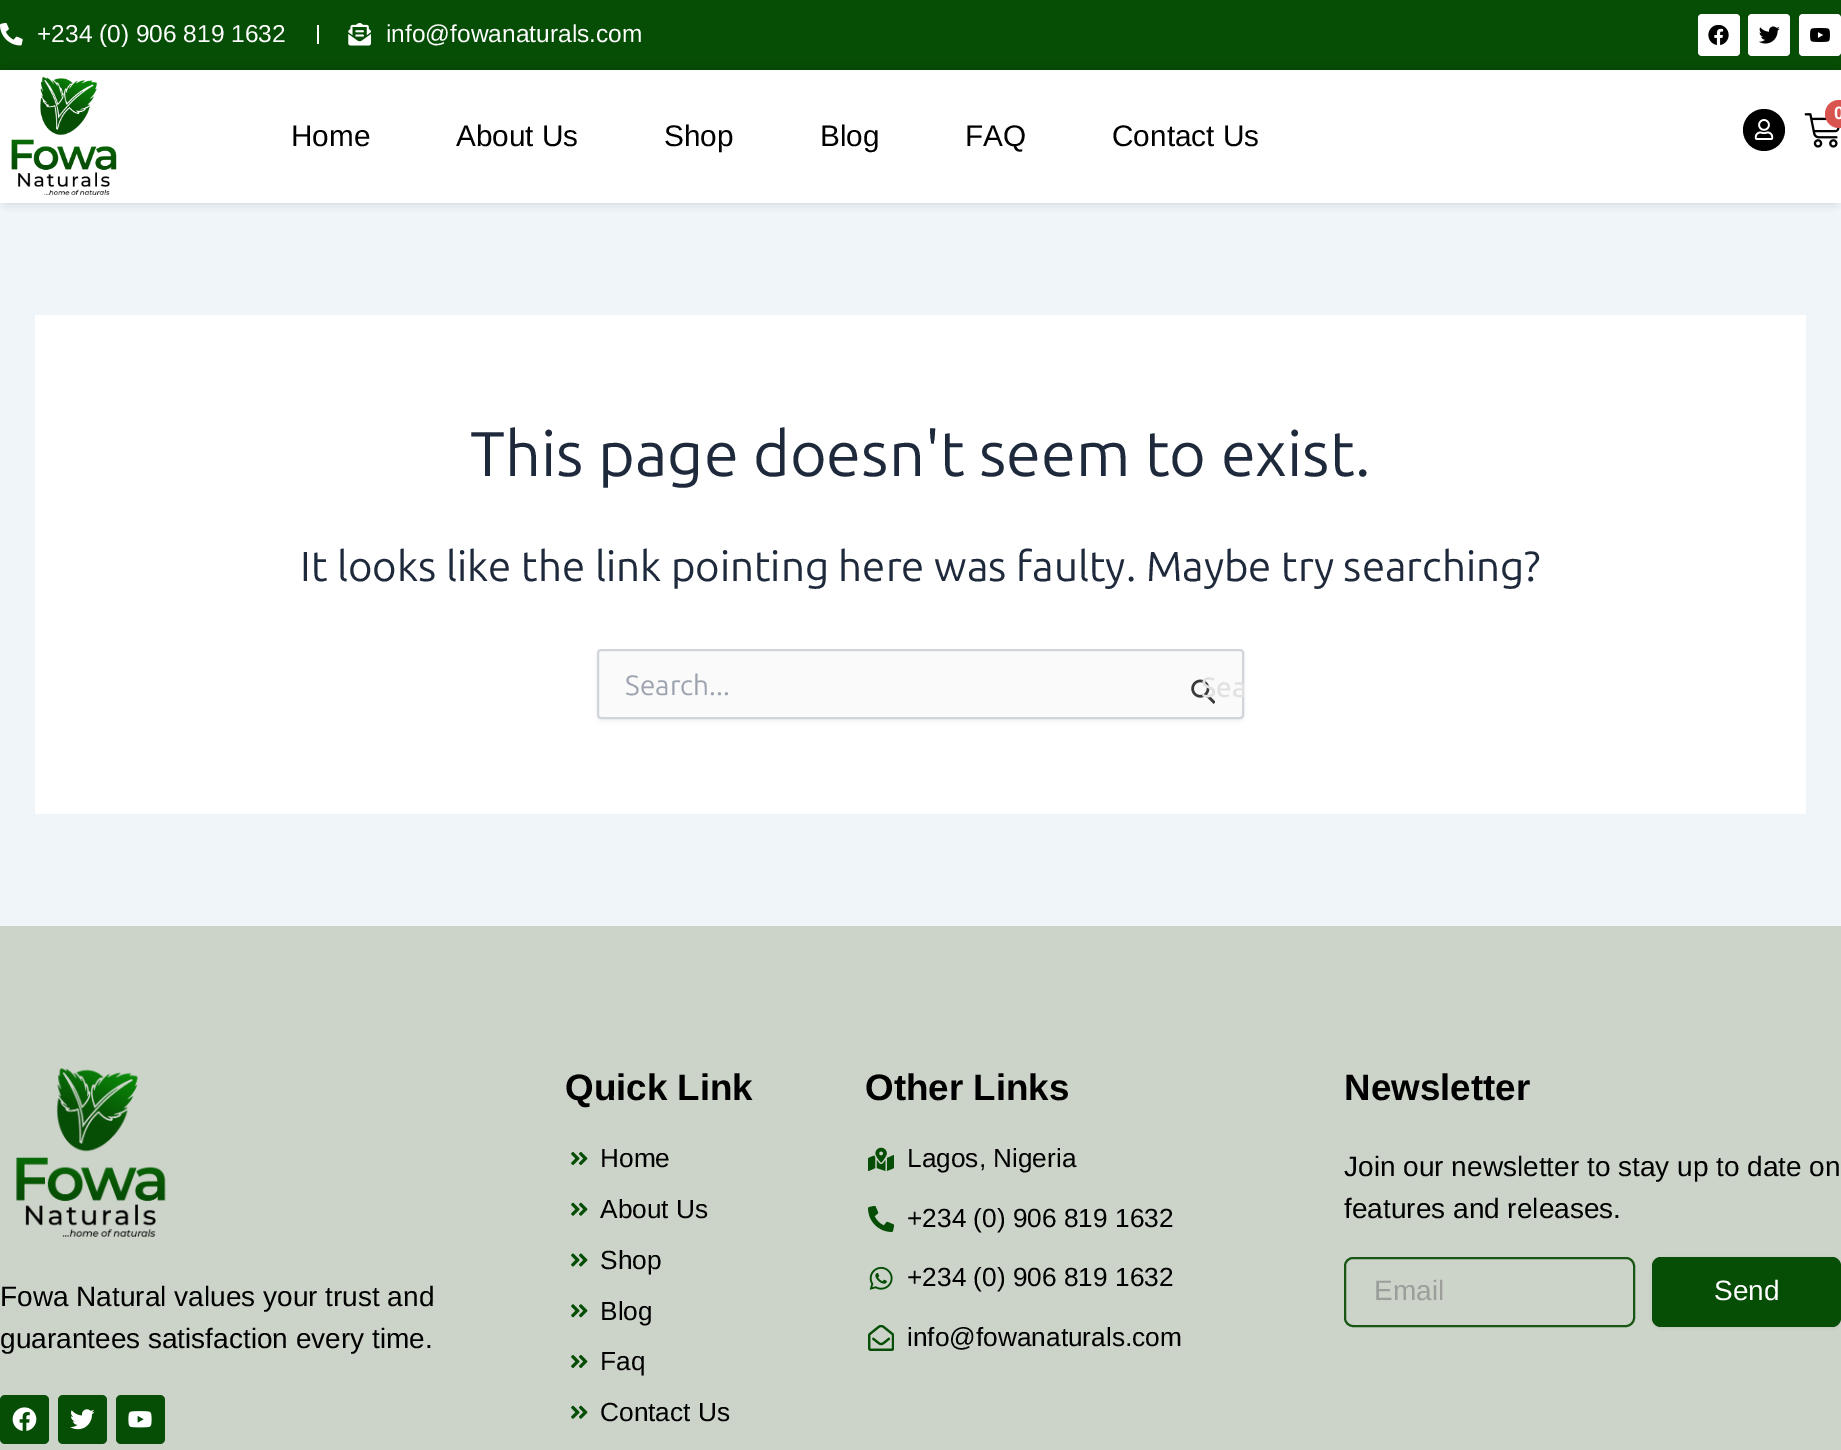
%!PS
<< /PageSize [1841 1450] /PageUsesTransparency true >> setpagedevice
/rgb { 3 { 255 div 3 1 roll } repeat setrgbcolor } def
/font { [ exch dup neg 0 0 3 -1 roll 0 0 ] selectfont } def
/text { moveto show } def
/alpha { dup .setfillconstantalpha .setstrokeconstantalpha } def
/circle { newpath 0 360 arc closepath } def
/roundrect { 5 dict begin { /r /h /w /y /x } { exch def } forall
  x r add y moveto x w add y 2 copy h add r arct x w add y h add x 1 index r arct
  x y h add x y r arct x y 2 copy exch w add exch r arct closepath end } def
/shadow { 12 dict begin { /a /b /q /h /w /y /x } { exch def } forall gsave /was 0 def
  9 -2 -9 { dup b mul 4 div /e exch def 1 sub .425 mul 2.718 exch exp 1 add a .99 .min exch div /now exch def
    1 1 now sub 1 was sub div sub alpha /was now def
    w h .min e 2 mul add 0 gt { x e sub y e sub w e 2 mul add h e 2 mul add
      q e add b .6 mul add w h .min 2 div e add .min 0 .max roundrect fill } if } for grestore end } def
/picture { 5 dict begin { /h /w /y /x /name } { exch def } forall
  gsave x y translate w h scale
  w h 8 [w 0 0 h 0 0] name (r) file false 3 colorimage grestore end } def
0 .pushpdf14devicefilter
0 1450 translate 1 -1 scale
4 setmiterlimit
240 245 250 rgb
0 0 1841 1450 rectfill
6 77 5 rgb
0 0 1841 70 rectfill
(img_01.rgb) 0 23 23 23 picture
255 255 255 rgb
317 25 2 19 rectfill
(img_02.rgb) 348 23 23 23 picture
1698 14 42 42 4 roundrect fill
(img_03.rgb) 1708 25 21 20 picture
1748 14 42 42 4 roundrect fill
(img_04.rgb) 1759 26 21 18 picture
1799 14 42 42 4 roundrect fill
(img_05.rgb) 1810 28 20 14 picture
0 0 0 rgb
7 77 1827 119 0 7 0.5 shadow
255 255 255 rgb
0 70 1841 133 rectfill
(img_06.rgb) 11 76 106 119 picture
0 0 0 rgb
1764 130 21 circle fill
(img_07.rgb) 1754 119 20 21 picture
(img_08.rgb) 1804 113 36 35 picture
217 83 79 rgb
1839 114 14 circle fill
255 255 255 rgb
35 315 1771 499 rectfill
0 0 0 rgb
597 651 647 70 4 2 0.05 shadow
250 250 250 rgb
598 650 645 68 3 roundrect gsave fill grestore
209 213 219 rgb
2 setlinewidth
stroke
(img_09.rgb) 1191 679 24 25 picture
204 211 201 rgb
0 926 1841 524 rectfill
(img_10.rgb) 571 1152 17 13 picture
(img_11.rgb) 571 1202 17 14 picture
(img_12.rgb) 571 1253 17 14 picture
(img_13.rgb) 571 1304 17 14 picture
(img_10.rgb) 571 1355 17 13 picture
(img_11.rgb) 571 1405 17 14 picture
(img_14.rgb) 868 1147 26 24 picture
(img_15.rgb) 868 1206 26 26 picture
(img_16.rgb) 869 1266 24 24 picture
(img_17.rgb) 868 1325 26 26 picture
24 87 19 rgb
1345 1258 289 68 8 roundrect stroke
0 0 0 rgb
1652 1258 189 70 9 2 0.05 shadow
6 77 5 rgb
1652 1257 189 70 9 roundrect fill
(img_18.rgb) 16 1068 150 169 picture
0 1395 49 49 5 roundrect fill
(img_19.rgb) 12 1407 25 24 picture
58 1395 49 49 5 roundrect fill
(img_20.rgb) 70 1409 25 21 picture
116 1395 49 49 5 roundrect fill
(img_21.rgb) 128 1411 24 17 picture
/LiberationSans-Regular 24.5 font
255 255 255 rgb
(+234 \(0\) 906 819 1632) 37 42 text
(info@fowanaturals.com) 386 42 text
/LiberationSans-Regular 29.75 font
0 0 0 rgb
(Home) 291 146 text
(About Us) 456 146 text
(Shop) 664 146 text
(Blog) 820 146 text
(FAQ) 965 146 text
(Contact Us) 1112 146 text
/LiberationSans-Bold 18 font
255 255 255 rgb
(0) 1834 119 text
/Ubuntu-Regular 63 font
30 41 59 rgb
(This page doesn't seem to exist.) 470 476 text
/Ubuntu-Regular 42 font
(It looks like the link pointing here was faulty. Maybe try searching?) 300 581 text
/Ubuntu-Regular 28 font
156 163 175 rgb
(Search...) 625 695 text
gsave
1166 649 78 74 4 roundrect clip newpath
/Ubuntu-Medium 28 font
225 225 226 rgb
(Sea) 1201 697 text
grestore
/LiberationSans-Bold 36.75 font
0 0 0 rgb
(Quick Link) 565 1100 text
/LiberationSans-Regular 26.25 font
(Home) 600 1167 text
(About Us) 600 1218 text
(Shop) 600 1269 text
(Blog) 600 1320 text
(Faq) 600 1370 text
(Contact Us) 600 1421 text
/LiberationSans-Bold 36.75 font
(Other Links) 865 1100 text
/LiberationSans-Regular 26.25 font
(Lagos, Nigeria) 907 1167 text
(+234 \(0\) 906 819 1632) 907 1227 text
(+234 \(0\) 906 819 1632) 907 1286 text
(info@fowanaturals.com) 907 1346 text
/LiberationSans-Bold 36.75 font
(Newsletter) 1344 1100 text
/LiberationSans-Regular 28 font
(Join our newsletter to stay up to date on) 1344 1176 text
(features and releases.) 1344 1218 text
155 158 154 rgb
(Email) 1374 1300 text
255 255 255 rgb
(Send) 1714 1300 text
0 0 0 rgb
(Fowa Natural values your trust and) 0 1306 text
(guarantees satisfaction every time.) 0 1348 text
.poppdf14devicefilter showpage
